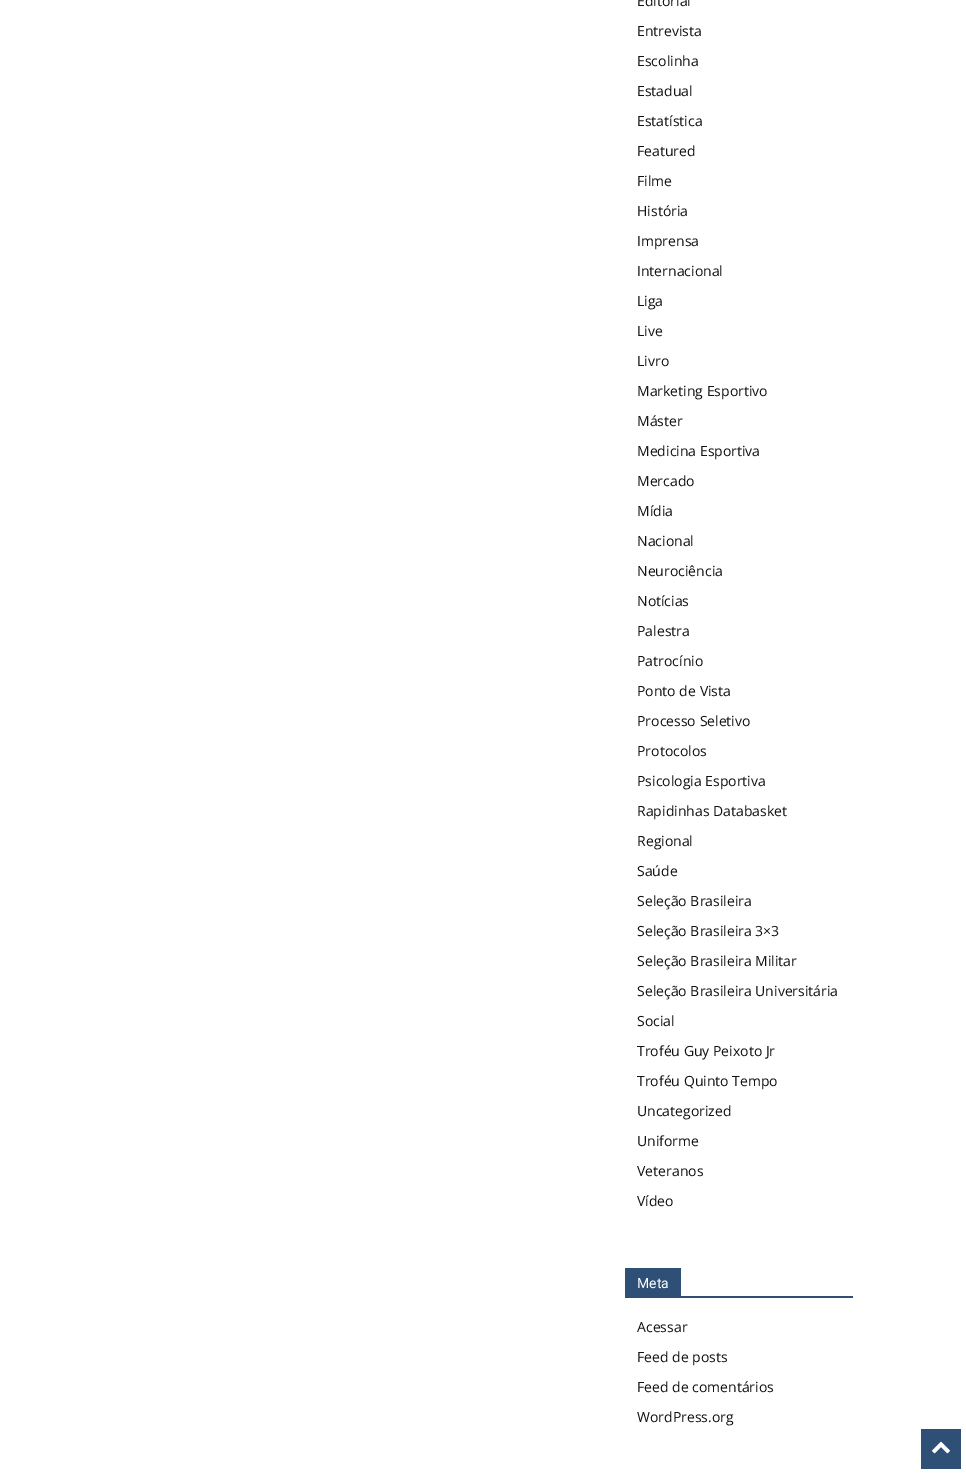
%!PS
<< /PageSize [966 1473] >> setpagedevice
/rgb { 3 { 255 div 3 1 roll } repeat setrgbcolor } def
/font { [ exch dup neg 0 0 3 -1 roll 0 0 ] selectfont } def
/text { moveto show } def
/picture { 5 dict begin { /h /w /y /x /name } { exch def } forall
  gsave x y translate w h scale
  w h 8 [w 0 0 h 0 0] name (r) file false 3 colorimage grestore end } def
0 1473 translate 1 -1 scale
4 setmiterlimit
255 255 255 rgb
0 0 966 1473 rectfill
46 80 118 rgb
625 1296 228 2 rectfill
625 1268 56 28 rectfill
921 1429 40 40 rectfill
(img_01.rgb) 932 1441 18 13 picture
/OpenSans-Regular 14 font
17 17 17 rgb
(Editorial) 637 6 text
(Entrevista) 637 36 text
(Escolinha) 637 66 text
(Estadual) 637 96 text
(Estatística) 637 126 text
(Featured) 637 156 text
(Filme) 637 186 text
(História) 637 216 text
(Imprensa) 637 246 text
(Internacional) 637 276 text
(Liga) 637 306 text
(Live) 637 336 text
(Livro) 637 366 text
(Marketing Esportivo) 637 396 text
(Máster) 637 426 text
(Medicina Esportiva) 637 456 text
(Mercado) 637 486 text
(Mídia) 637 516 text
(Nacional) 637 546 text
(Neurociência) 637 576 text
(Notícias) 637 606 text
(Palestra) 637 636 text
(Patrocínio) 637 666 text
(Ponto de Vista) 637 696 text
(Processo Seletivo) 637 726 text
(Protocolos) 637 756 text
(Psicologia Esportiva) 637 786 text
(Rapidinhas Databasket) 637 816 text
(Regional) 637 846 text
(Saúde) 637 876 text
(Seleção Brasileira) 637 906 text
(Seleção Brasileira 3×3) 637 936 text
(Seleção Brasileira Militar) 637 966 text
(Seleção Brasileira Universitária) 637 996 text
(Social) 637 1026 text
(Troféu Guy Peixoto Jr) 637 1056 text
(Troféu Quinto Tempo) 637 1086 text
(Uncategorized) 637 1116 text
(Uniforme) 637 1146 text
(Veteranos) 637 1176 text
(Vídeo) 637 1206 text
/Roboto-Regular 14 font
255 255 255 rgb
(Meta) 637 1288 text
/OpenSans-Regular 14 font
17 17 17 rgb
(Acessar) 637 1332 text
(Feed de posts) 637 1362 text
(Feed de comentários) 637 1392 text
(WordPress.org) 637 1422 text
showpage
